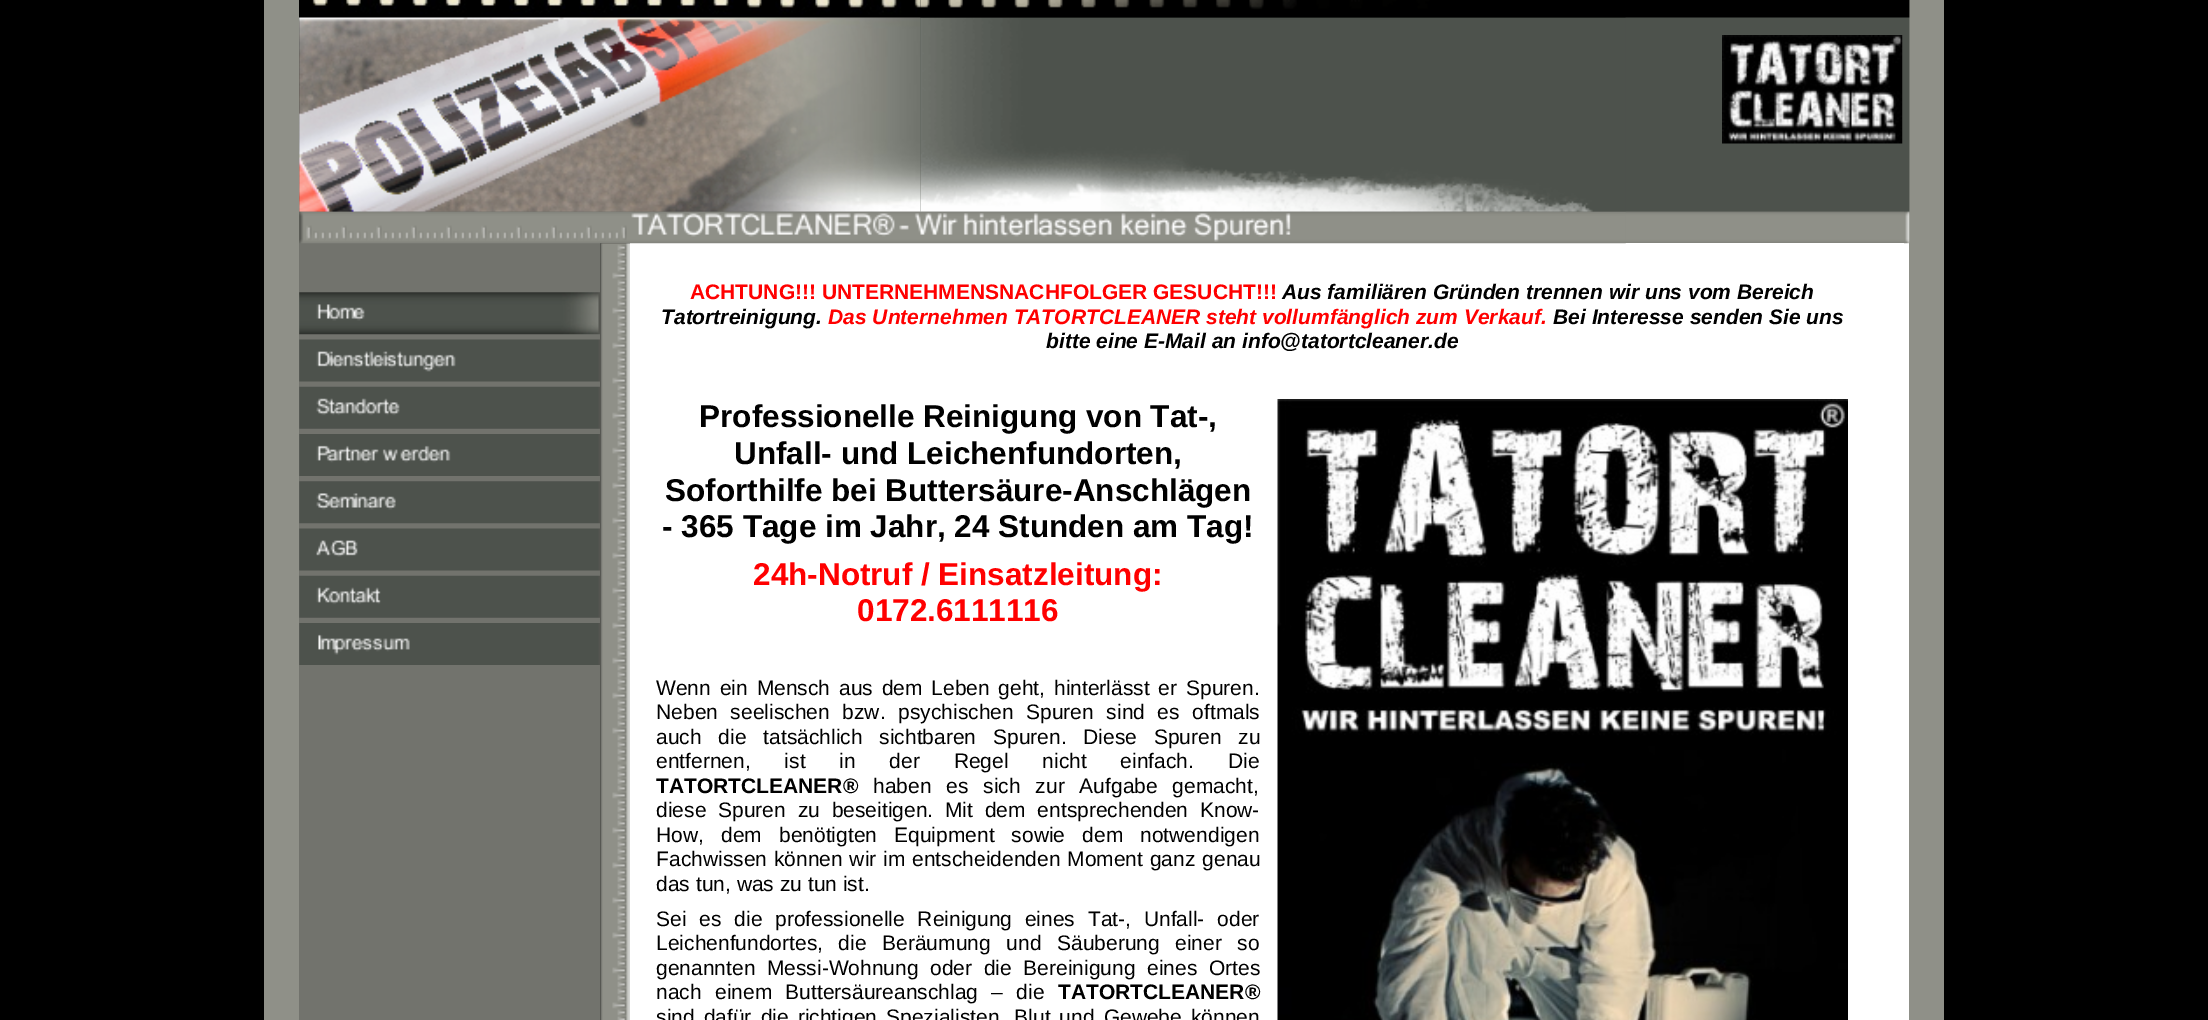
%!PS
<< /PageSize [2208 1020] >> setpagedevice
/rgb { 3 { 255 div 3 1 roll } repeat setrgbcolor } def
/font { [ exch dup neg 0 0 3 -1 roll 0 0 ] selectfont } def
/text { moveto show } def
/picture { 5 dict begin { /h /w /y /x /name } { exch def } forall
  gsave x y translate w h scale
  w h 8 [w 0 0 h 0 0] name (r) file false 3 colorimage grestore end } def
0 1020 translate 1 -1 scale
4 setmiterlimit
0 0 0 rgb
0 0 2208 1020 rectfill
143 144 136 rgb
1909 0 35 1020 rectfill
264 0 35 1020 rectfill
(img_01.rgb) 299 0 1611 244 picture
(img_05.rgb) 920 17 706 195 picture
(img_02.rgb) 299 0 622 212 picture
(img_03.rgb) 920 0 706 18 picture
255 255 255 rgb
630 243 1279 777 rectfill
(img_04.rgb) 1904 0 6 244 picture
(img_06.rgb) 1722 35 181 109 picture
114 115 109 rgb
299 243 301 777 rectfill
(img_17.rgb) 600 243 30 777 picture
(img_07.rgb) 299 211 331 33 picture
(img_08.rgb) 630 211 996 33 picture
(img_09.rgb) 299 292 301 43 picture
(img_10.rgb) 299 339 301 43 picture
(img_11.rgb) 299 386 301 43 picture
(img_12.rgb) 299 434 301 42 picture
(img_13.rgb) 299 481 301 43 picture
(img_14.rgb) 299 528 301 43 picture
(img_15.rgb) 299 575 301 43 picture
(img_16.rgb) 299 623 301 42 picture
(img_18.rgb) 1277 399 571 621 picture
/LiberationSans-Bold 21 font
255 0 0 rgb
(ACHTUNG!!! UNTERNEHMENSNACHFOLGER GESUCHT!!!) 690 299 text
/LiberationSans-BoldItalic 21 font
0 0 0 rgb
(Aus familiären Gründen trennen wir uns vom Bereich) 1282 299 text
(Tatortreinigung.) 661 324 text
255 0 0 rgb
(Das Unternehmen TATORTCLEANER steht vollumfänglich zum Verkauf.) 828 324 text
0 0 0 rgb
(Bei Interesse senden Sie uns) 1553 324 text
(bitte eine E-Mail an info@tatortcleaner.de) 1046 348 text
/LiberationSans-Bold 31.5 font
(Professionelle Reinigung von Tat-,) 699 427 text
(Unfall- und Leichenfundorten,) 734 464 text
(Soforthilfe bei Buttersäure-Anschlägen) 665 501 text
(- 365 Tage im Jahr, 24 Stunden am Tag!) 662 537 text
255 0 0 rgb
(24h-Notruf / Einsatzleitung:) 753 585 text
(0172.6111116) 857 621 text
/LiberationSans-Regular 21 font
0 0 0 rgb
656 695 moveto 3 0 32 (Wenn ein Mensch aus dem Leben geht, hinterlässt er Spuren.) widthshow
656 719 moveto 6.75 0 32 (Neben seelischen bzw. psychischen Spuren sind es oftmals) widthshow
656 744 moveto 11 0 32 (auch die tatsächlich sichtbaren Spuren. Diese Spuren zu) widthshow
656 768 moveto 28 0 32 (entfernen, ist in der Regel nicht einfach. Die) widthshow
/LiberationSans-Bold 21 font
(TATORTCLEANER®) 656 793 text
/LiberationSans-Regular 21 font
873 793 moveto 9 0 32 (haben es sich zur Aufgabe gemacht,) widthshow
656 817 moveto 6 0 32 (diese Spuren zu beseitigen. Mit dem entsprechenden Know-) widthshow
656 842 moveto 11.25 0 32 (How, dem benötigten Equipment sowie dem notwendigen) widthshow
656 866 moveto 1 0 32 (Fachwissen können wir im entscheidenden Moment ganz genau) widthshow
(das tun, was zu tun ist.) 656 891 text
656 926 moveto 7 0 32 (Sei es die professionelle Reinigung eines Tat-, Unfall- oder) widthshow
656 950 moveto 9.75 0 32 (Leichenfundortes, die Beräumung und Säuberung einer so) widthshow
656 975 moveto 5.75 0 32 (genannten Messi-Wohnung oder die Bereinigung eines Ortes) widthshow
656 999 moveto 7.5 0 32 (nach einem Buttersäureanschlag – die) widthshow
/LiberationSans-Bold 21 font
(TATORTCLEANER®) 1058 999 text
/LiberationSans-Regular 21 font
656 1024 moveto 3.25 0 32 (sind dafür die richtigen Spezialisten. Blut und Gewebe können) widthshow
showpage
